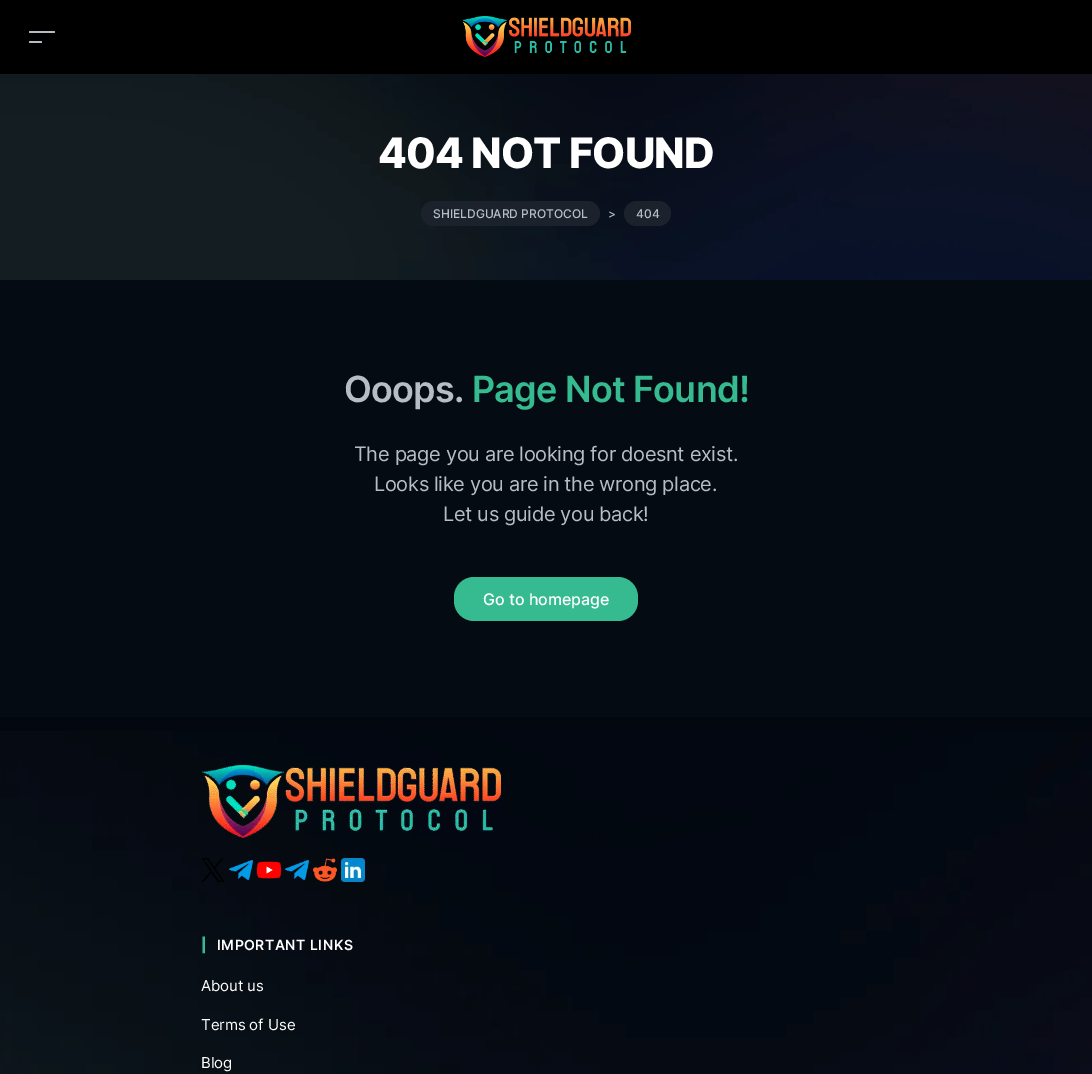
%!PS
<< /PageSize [1092 1074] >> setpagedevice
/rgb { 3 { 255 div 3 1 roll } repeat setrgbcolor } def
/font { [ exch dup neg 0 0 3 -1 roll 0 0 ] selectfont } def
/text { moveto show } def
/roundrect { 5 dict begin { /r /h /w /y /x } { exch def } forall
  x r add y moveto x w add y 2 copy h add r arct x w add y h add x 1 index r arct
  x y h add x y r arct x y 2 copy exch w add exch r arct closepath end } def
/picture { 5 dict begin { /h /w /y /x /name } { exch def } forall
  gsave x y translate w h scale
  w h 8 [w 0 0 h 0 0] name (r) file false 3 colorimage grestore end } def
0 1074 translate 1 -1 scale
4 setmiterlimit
5 11 19 rgb
0 0 1092 1074 rectfill
0 0 0 rgb
0 0 1092 74 rectfill
182 189 197 rgb
29 31 26 2 1 roundrect fill
29 41 13 2 1 roundrect fill
(img_01.rgb) 461 16 170 41 picture
(img_02.rgb) 0 74 1092 206 picture
28 34 43 rgb
421 201 179 25 12.5 roundrect fill
624 201 47 25 12.5 roundrect fill
54 187 145 rgb
454 577 184 44 20 roundrect fill
2 7 16 rgb
0 717 1092 14 rectfill
(img_03.rgb) 0 731 1092 343 picture
(img_04.rgb) 201 765 300 73 picture
(img_05.rgb) 201 858 24 24 picture
(img_06.rgb) 229 860 24 20 picture
(img_07.rgb) 257 861 24 18 picture
(img_08.rgb) 285 860 24 20 picture
(img_09.rgb) 313 858 24 24 picture
(img_10.rgb) 341 858 24 24 picture
/Inter-ExtraBold 42 font
255 255 255 rgb
378 168 moveto -0.9 0 (404 NOT FOUND) ashow
/Inter-Medium 12 font
182 189 197 rgb
(SHIELDGUARD PROTOCOL) 433 218 text
(>) 608 218 text
(404) 636 218 text
/Inter-SemiBold 36 font
344 402 moveto -0.75 0 (Ooops.) ashow
54 187 145 rgb
472 402 moveto -0.75 0 (Page Not Found!) ashow
/Inter-Regular 20 font
182 189 197 rgb
354 461 moveto -0.35 0 (The page you are looking for doesnt exist.) ashow
374 491 moveto -0.35 0 (Looks like you are in the wrong place.) ashow
443 521 moveto -0.35 0 (Let us guide you back!) ashow
/Inter-Medium 16 font
255 255 255 rgb
(Go to homepage) 483 605 text
/Inter-ExtraBold 14 font
54 187 145 rgb
(|) 201 950 text
/Inter-SemiBold 14 font
255 255 255 rgb
217 950 moveto 0.5 0 (IMPORTANT LINKS) ashow
/Inter-Regular 15 font
201 991 moveto -0.1 0 (About us) ashow
201 1030 moveto -0.1 0 (Terms of Use) ashow
201 1068 moveto -0.1 0 (Blog) ashow
showpage
